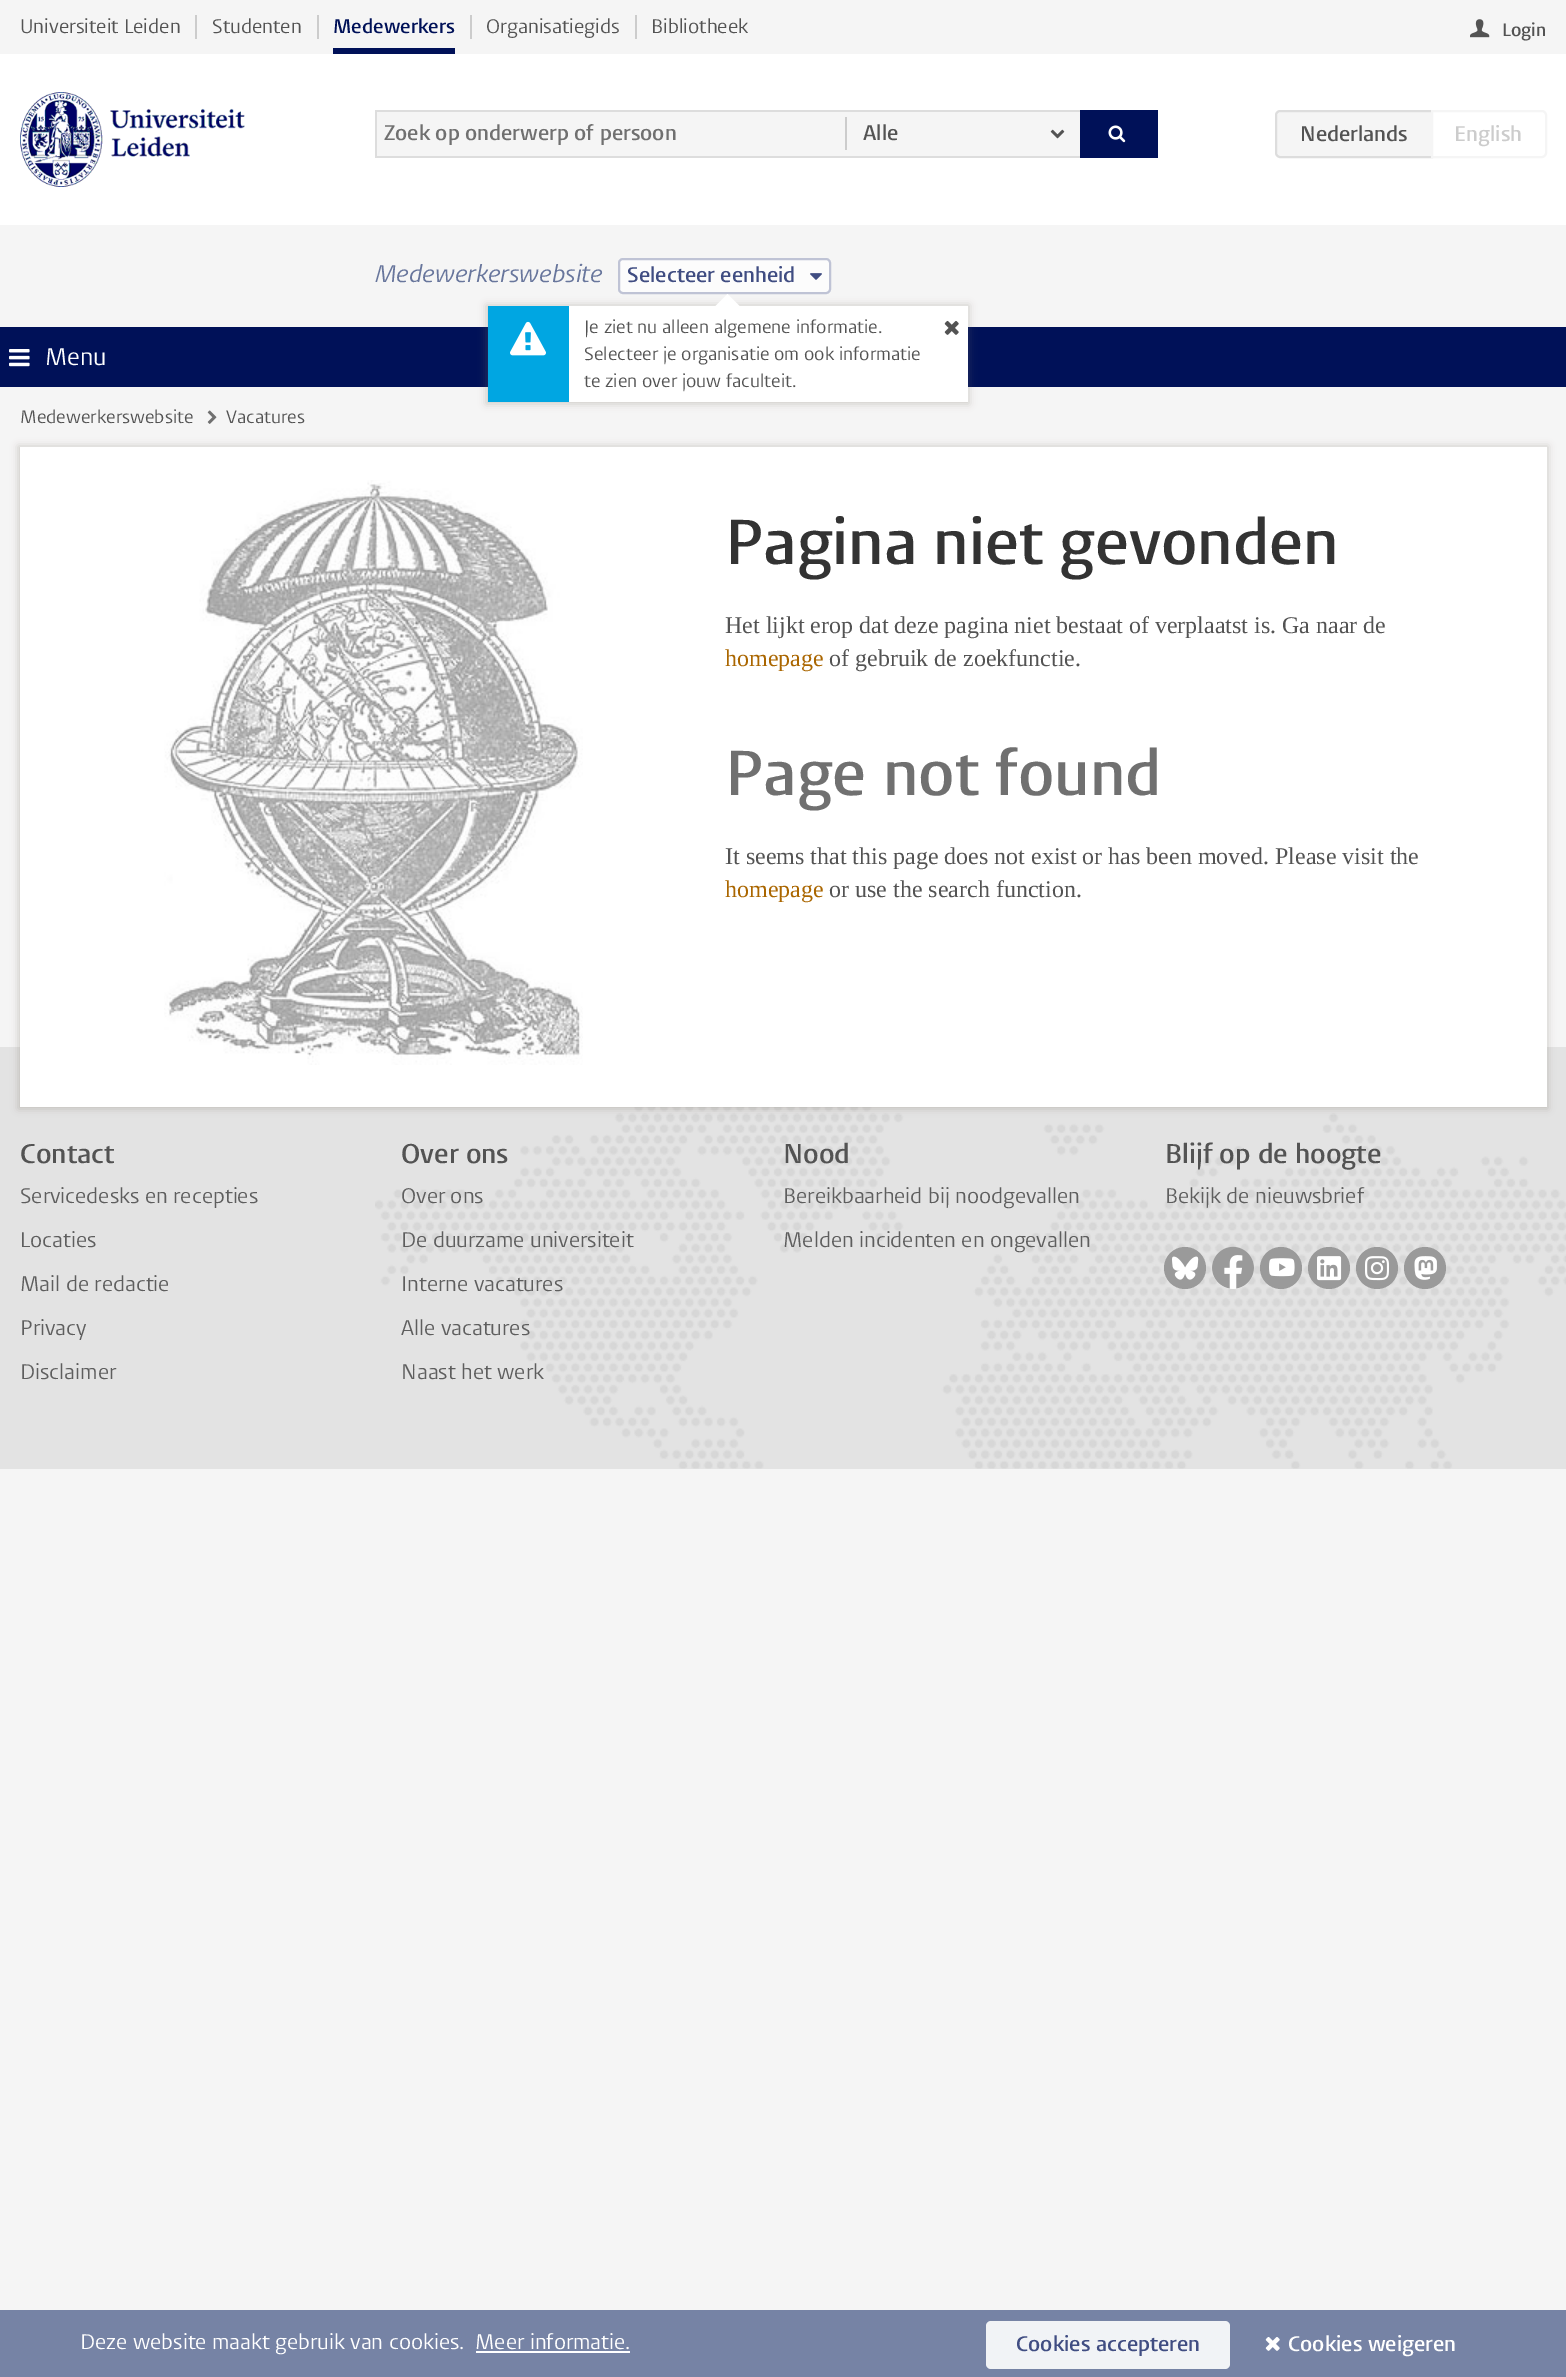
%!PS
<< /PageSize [1566 2377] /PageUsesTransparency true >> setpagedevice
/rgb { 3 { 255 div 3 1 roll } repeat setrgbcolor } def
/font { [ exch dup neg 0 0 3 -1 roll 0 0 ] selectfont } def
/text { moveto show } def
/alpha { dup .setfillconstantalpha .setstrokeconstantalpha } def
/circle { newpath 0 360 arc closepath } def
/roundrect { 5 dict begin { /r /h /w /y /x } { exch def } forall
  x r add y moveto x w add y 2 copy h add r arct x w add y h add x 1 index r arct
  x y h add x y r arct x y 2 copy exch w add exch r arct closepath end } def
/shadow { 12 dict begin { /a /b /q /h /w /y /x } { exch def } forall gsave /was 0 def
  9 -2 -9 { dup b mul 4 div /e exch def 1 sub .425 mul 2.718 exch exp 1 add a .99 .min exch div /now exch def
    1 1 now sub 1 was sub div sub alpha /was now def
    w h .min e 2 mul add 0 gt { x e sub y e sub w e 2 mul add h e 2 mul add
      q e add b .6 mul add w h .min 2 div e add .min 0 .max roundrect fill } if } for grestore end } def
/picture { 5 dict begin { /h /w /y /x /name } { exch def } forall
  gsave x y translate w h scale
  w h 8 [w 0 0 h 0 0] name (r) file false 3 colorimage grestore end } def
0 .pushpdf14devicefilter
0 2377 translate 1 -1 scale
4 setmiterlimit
245 245 245 rgb
0 0 1566 2377 rectfill
255 255 255 rgb
0 54 1566 171 rectfill
204 204 204 rgb
195 15 2 24 rectfill
317 15 2 24 rectfill
470 15 2 24 rectfill
0 17 88 rgb
333 48 122 6 rectfill
204 204 204 rgb
635 15 2 24 rectfill
(img_01.rgb) 1470 19 20 19 picture
(img_02.rgb) 20 92 225 95 picture
245 245 245 rgb
377 112 703 44 rectfill
221 221 221 rgb
375 110 705 2 rectfill
375 156 705 2 rectfill
375 110 2 48 rectfill
204 204 204 rgb
845 117 2 33 rectfill
(img_03.rgb) 1050 129 15 10 picture
0 17 88 rgb
1080 110 78 48 rectfill
(img_04.rgb) 1108 125 18 18 picture
245 245 245 rgb
1280 111 moveto 152 0 rlineto 0 46 rlineto -152 0 rlineto -2 0 -4 -2 -4 -4 rcurveto 0 -38 rlineto 0 -2 2 -4 4 -4 rcurveto closepath gsave fill grestore
221 221 221 rgb
2 setlinewidth
stroke
255 255 255 rgb
1432 111 moveto 110 0 rlineto 2 0 4 2 4 4 rcurveto 0 38 rlineto 0 2 -2 4 -4 4 rcurveto -110 0 rlineto closepath gsave fill grestore
245 245 245 rgb
stroke
0 17 88 rgb
0 327 1566 60 rectfill
(img_05.rgb) 9 349 21 18 picture
252 252 252 rgb
619 259 211 34 4 roundrect gsave fill grestore
191 195 213 rgb
stroke
(img_06.rgb) 810 273 12 7 picture
120 110 100 rgb
486 305 483 99 0 4 0.3 shadow
255 255 255 rgb
569 306 399 96 rectfill
739.5 306 moveto -24 0 rlineto 12 -12 rlineto closepath fill
0 166 226 rgb
488 306 81 96 rectfill
(img_07.rgb) 510 321 36 35 picture
(img_08.rgb) 944 320 15 15 picture
(img_09.rgb) 207 410 10 14 picture
227 227 227 rgb
0 1047 1566 422 rectfill
(img_11.rgb) 375 1107 1191 362 picture
120 110 100 rgb
18 446 1530 663 0 4 0.3 shadow
255 255 255 rgb
20 447 1527 660 rectfill
(img_10.rgb) 164 480 419 585 picture
154 154 154 rgb
1185 1268 21 circle fill
(img_12.rgb) 1172 1256 27 24 picture
255 255 255 rgb
1233 1268 21 circle fill
(img_13.rgb) 1212 1246 42 43 picture
154 154 154 rgb
1281 1268 21 circle fill
(img_14.rgb) 1269 1258 26 19 picture
1329 1268 21 circle fill
(img_15.rgb) 1317 1256 25 25 picture
1377 1268 21 circle fill
(img_16.rgb) 1365 1256 24 25 picture
1425 1268 21 circle fill
(img_17.rgb) 1414 1256 23 24 picture
118 131 165 rgb
0 2310 1566 67 rectfill
255 255 255 rgb
476 2351 154 2 rectfill
241 243 246 rgb
986 2321 244 48 5 roundrect fill
(img_18.rgb) 1265 2337 15 14 picture
/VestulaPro-Regular 19.5 font
83 83 83 rgb
(Universiteit Leiden) 20 33 text
(Studenten) 212 33 text
/VestulaPro-SemiBold 19.5 font
0 17 88 rgb
(Medewerkers) 333 33 text
/VestulaPro-Regular 19.5 font
83 83 83 rgb
(Organisatiegids) 486 33 text
(Bibliotheek) 651 33 text
/VestulaPro-SemiBold 18 font
(Login) 1502 36 text
/VestulaPro-SemiBold 21 font
112 112 112 rgb
(Zoek op onderwerp of persoon) 384 140 text
83 83 83 rgb
(Alle) 863 140 text
(Nederlands) 1300 141 text
204 204 204 rgb
(English) 1454 141 text
/VestulaPro-Regular 24 font
255 255 255 rgb
(Menu) 45 365 text
/VestulaPro-Italic 24 font
104 118 156 rgb
(Medewerkerswebsite) 375 282 text
/VestulaPro-SemiBold 21 font
64 77 130 rgb
(Selecteer eenheid) 627 282 text
/VestulaPro-Regular 18 font
83 83 83 rgb
(Je ziet nu alleen algemene informatie.) 584 333 text
(Selecteer je organisatie om ook informatie) 584 360 text
(te zien over jouw faculteit.) 584 387 text
(Medewerkerswebsite) 20 423 text
(Vacatures) 226 423 text
/VestulaPro-SemiBold 63 font
51 51 51 rgb
(Pagina niet gevonden) 725 564 text
/LiberationSerif-Regular 24 font
83 83 83 rgb
(Het lijkt erop dat deze pagina niet bestaat of verplaatst is. Ga naar de) 725 633 text
170 102 0 rgb
(homepage) 725 666 text
83 83 83 rgb
(of gebruik de zoekfunctie.) 829 666 text
/VestulaPro-SemiBold 63 font
112 112 112 rgb
(Page not found) 725 795 text
/LiberationSerif-Regular 24 font
83 83 83 rgb
(It seems that this page does not exist or has been moved. Please visit the) 725 864 text
170 102 0 rgb
(homepage) 725 897 text
83 83 83 rgb
(or use the search function.) 829 897 text
/VestulaPro-SemiBold 27 font
(Contact) 20 1163 text
/VestulaPro-Regular 21 font
94 94 94 rgb
(Servicedesks en recepties) 20 1203 text
(Locaties) 20 1247 text
(Mail de redactie) 20 1291 text
(Privacy) 20 1335 text
(Disclaimer) 20 1379 text
/VestulaPro-SemiBold 27 font
83 83 83 rgb
(Over ons) 401 1163 text
/VestulaPro-Regular 21 font
94 94 94 rgb
(Over ons) 401 1203 text
(De duurzame universiteit) 401 1247 text
(Interne vacatures) 401 1291 text
(Alle vacatures) 401 1335 text
(Naast het werk) 401 1379 text
/VestulaPro-SemiBold 27 font
83 83 83 rgb
(Nood) 783 1163 text
/VestulaPro-Regular 21 font
94 94 94 rgb
(Bereikbaarheid bij noodgevallen) 783 1203 text
(Melden incidenten en ongevallen) 783 1247 text
/VestulaPro-SemiBold 27 font
83 83 83 rgb
(Blijf op de hoogte) 1165 1163 text
/VestulaPro-Regular 21 font
94 94 94 rgb
(Bekijk de nieuwsbrief) 1165 1203 text
255 255 255 rgb
(Deze website maakt gebruik van cookies.) 80 2349 text
(Meer informatie.) 475 2349 text
/VestulaPro-SemiBold 21 font
64 77 130 rgb
(Cookies accepteren) 1016 2351 text
255 255 255 rgb
(Cookies weigeren) 1288 2351 text
.poppdf14devicefilter showpage
